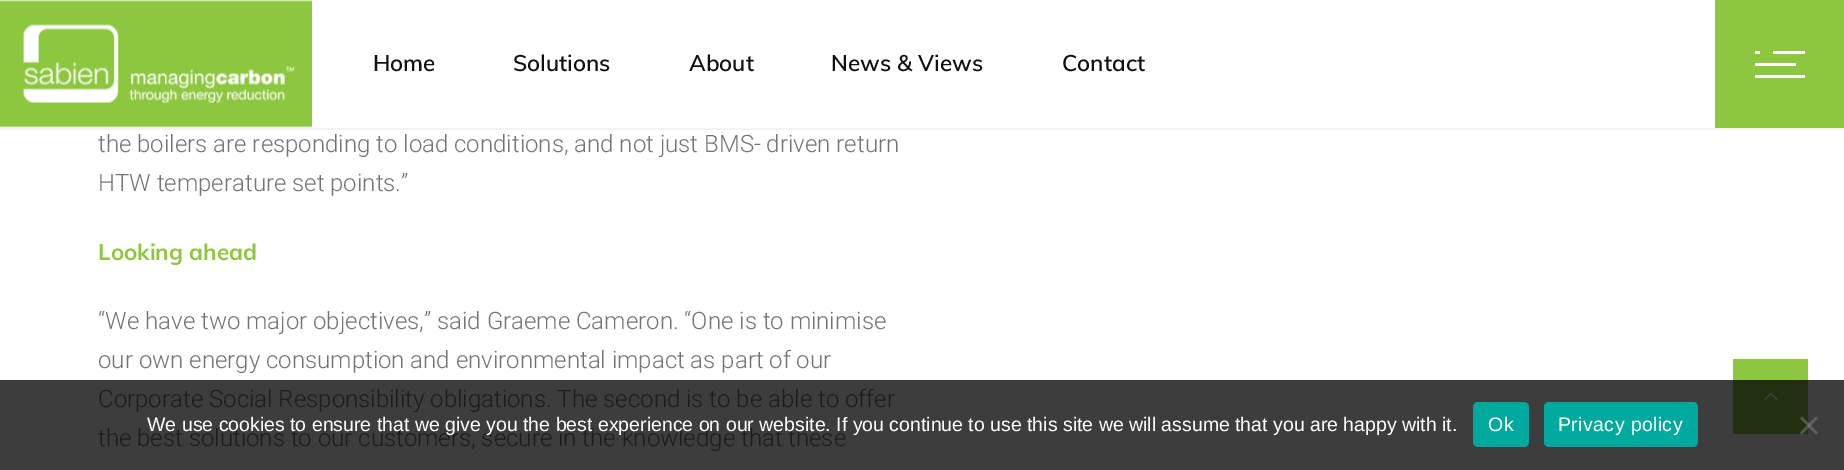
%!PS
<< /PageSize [1844 470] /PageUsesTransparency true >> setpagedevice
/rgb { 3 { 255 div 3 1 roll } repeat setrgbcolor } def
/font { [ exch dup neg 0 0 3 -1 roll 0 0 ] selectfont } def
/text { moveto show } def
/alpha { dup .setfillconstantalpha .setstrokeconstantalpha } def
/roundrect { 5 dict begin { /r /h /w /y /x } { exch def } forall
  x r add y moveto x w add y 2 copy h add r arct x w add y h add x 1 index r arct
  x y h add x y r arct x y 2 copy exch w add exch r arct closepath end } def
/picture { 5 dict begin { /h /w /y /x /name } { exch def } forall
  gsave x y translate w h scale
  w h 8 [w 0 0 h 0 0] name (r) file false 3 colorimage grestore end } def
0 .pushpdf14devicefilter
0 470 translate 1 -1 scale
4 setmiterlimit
255 255 255 rgb
0 0 1844 470 rectfill
61 61 61 rgb
0 380 1844 90 rectfill
241 243 245 rgb
0 128 1844 2 rectfill
(img_01.rgb) 0 0 312 128 picture
141 198 63 rgb
1715 0 129 128 rectfill
255 255 255 rgb
1755 51 5 3 rectfill
1773 51 32 3 rectfill
1755 63 41 3 rectfill
1755 75 50 3 rectfill
141 198 63 rgb
1733 359 75 21 rectfill
34 48 15 rgb
1733 380 75 54 rectfill
(img_02.rgb) 1764 392 14 9 picture
0 169 157 rgb
1473 402 56 45 5 roundrect fill
1544 402 154 45 5 roundrect fill
0.5 alpha
128 128 128 rgb
1816 416.5 moveto 2 2 rlineto -16 16 rlineto -2 -2 rlineto closepath fill
1800 418.5 moveto 2 -2 rlineto 16 16 rlineto -2 2 rlineto closepath fill
/Muli-SemiBold 22.5 font
1 alpha
16 16 16 rgb
(Home) 373 71 text
(Solutions) 513 71 text
(About) 689 71 text
(News & Views) 831 71 text
(Contact) 1062 71 text
/Roboto-Light 24 font
116 116 116 rgb
(the boilers are responding to load conditions, and not just BMS- driven return) 98 152 text
(HTW temperature set points.”) 98 191 text
/Muli-Bold 22.5 font
141 199 63 rgb
(Looking ahead) 98 260 text
/Roboto-Light 24 font
116 116 116 rgb
(“We have two major objectives,” said Graeme Cameron. “One is to minimise) 98 329 text
(our own energy consumption and environmental impact as part of our) 98 368 text
28 28 28 rgb
(Corporate Social Responsibility obligations. The second is to be able to offer) 98 407 text
(the best solutions to our customers, secure in the knowledge that these) 98 446 text
/LiberationSans-Regular 19.5 font
255 255 255 rgb
(We use cookies to ensure that we give you the best experience on our website. If you continue to use this site we will assume that you are happy with it.) 147 431 text
1488 431 moveto 0.4 0 (Ok) ashow
1558 431 moveto 0.4 0 (Privacy policy) ashow
.poppdf14devicefilter showpage
